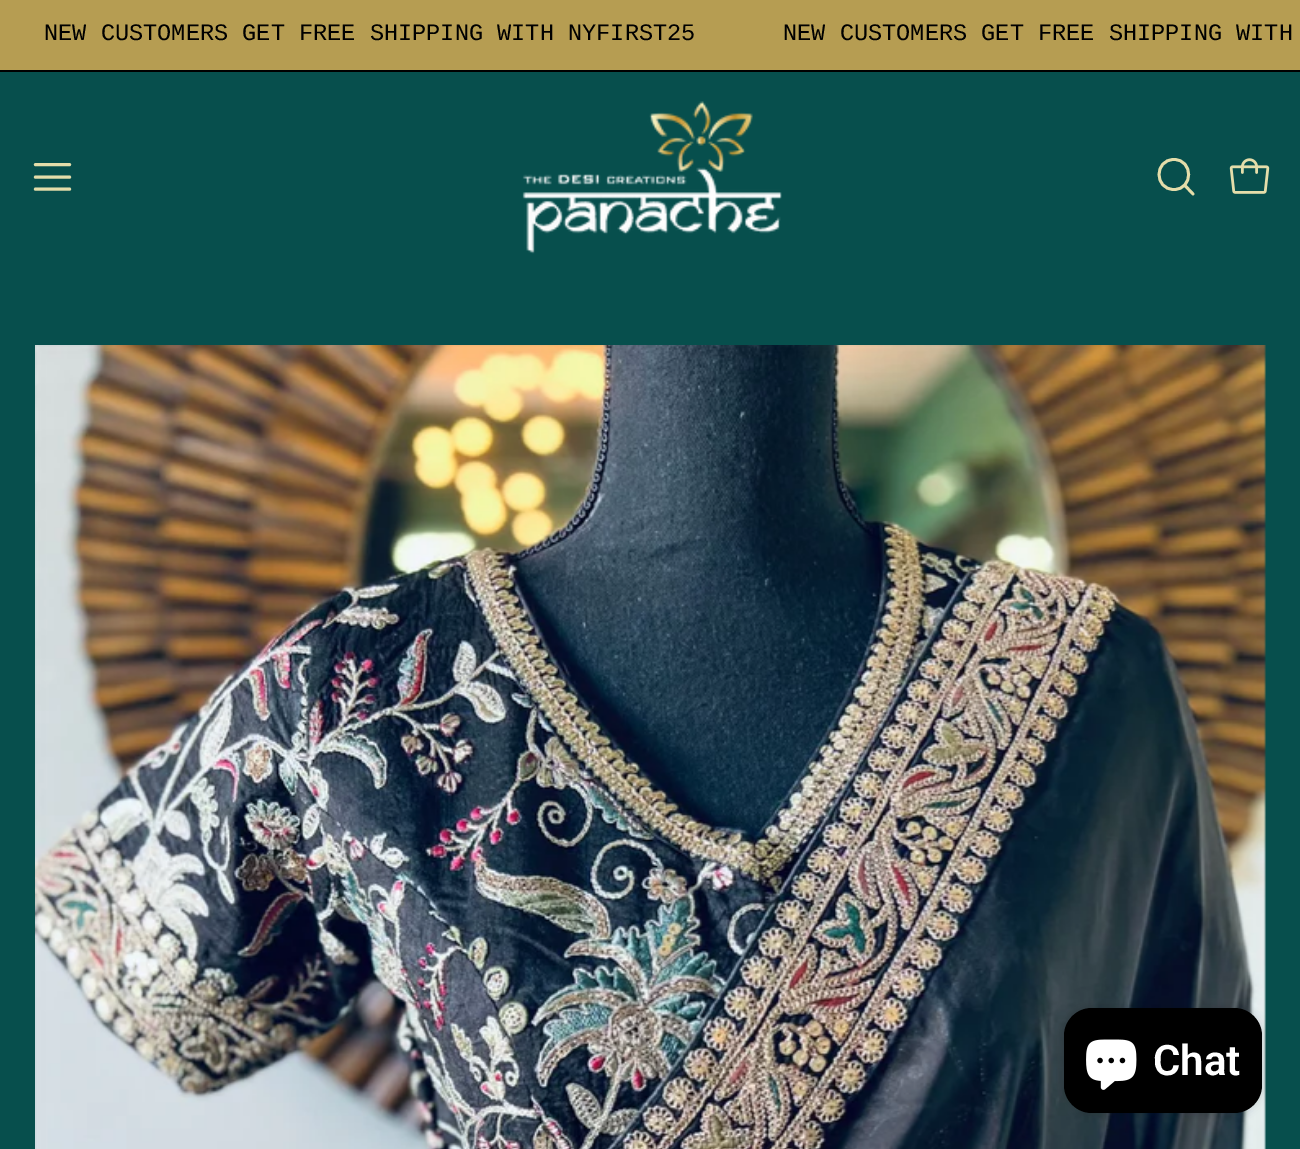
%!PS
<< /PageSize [1300 1149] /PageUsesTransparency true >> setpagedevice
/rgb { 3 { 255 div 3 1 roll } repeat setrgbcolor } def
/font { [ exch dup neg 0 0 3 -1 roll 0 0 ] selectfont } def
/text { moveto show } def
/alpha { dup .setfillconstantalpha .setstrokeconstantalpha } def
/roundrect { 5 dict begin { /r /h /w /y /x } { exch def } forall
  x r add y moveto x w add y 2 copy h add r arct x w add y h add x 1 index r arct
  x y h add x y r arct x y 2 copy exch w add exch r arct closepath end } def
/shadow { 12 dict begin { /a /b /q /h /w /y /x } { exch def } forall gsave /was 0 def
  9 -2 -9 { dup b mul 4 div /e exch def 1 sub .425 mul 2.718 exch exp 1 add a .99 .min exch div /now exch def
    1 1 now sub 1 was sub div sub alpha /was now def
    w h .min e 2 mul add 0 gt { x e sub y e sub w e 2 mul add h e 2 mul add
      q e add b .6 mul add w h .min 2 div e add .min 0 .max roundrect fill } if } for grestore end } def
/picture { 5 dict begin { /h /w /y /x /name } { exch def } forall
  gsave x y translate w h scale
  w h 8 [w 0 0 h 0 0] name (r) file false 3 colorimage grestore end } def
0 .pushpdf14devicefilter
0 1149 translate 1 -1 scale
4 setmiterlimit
7 79 77 rgb
0 0 1300 1149 rectfill
182 157 82 rgb
0 0 1300 70 rectfill
0 0 0 rgb
0 70 1300 2 rectfill
228 221 170 rgb
3.1 setlinewidth
1 setlinecap
1 setlinejoin
35.5 177 moveto 34 0 rlineto 35.5 164.5 moveto 34 0 rlineto 35.5 189 moveto 34 0 rlineto stroke
(img_01.rgb) 522 101 260 153 picture
2.8 setlinewidth
1174 189.5 moveto 19.5 0 19.5 -30 0 -30 rcurveto -20 0 -20 30 0 30 rcurveto closepath 1184.5 185 moveto 8.5 9 rlineto stroke
(img_02.rgb) 1229 158 41 36 picture
(img_03.rgb) 35 345 1231 804 picture
0 0 0 rgb
1064 1008 198 105 28 4.5 0.15 shadow
1064 1008 198 105 28 roundrect fill
(img_04.rgb) 1086 1039 51 51 picture
/LiberationMono-Regular 23.6 font
(NEW CUSTOMERS GET FREE SHIPPING WITH NYFIRST25) 44 40 text
(NEW CUSTOMERS GET FREE SHIPPING WITH) 783 40 text
/Roboto-SemiBold 42 font
255 255 255 rgb
(Chat) 1153 1075 text
.poppdf14devicefilter showpage
